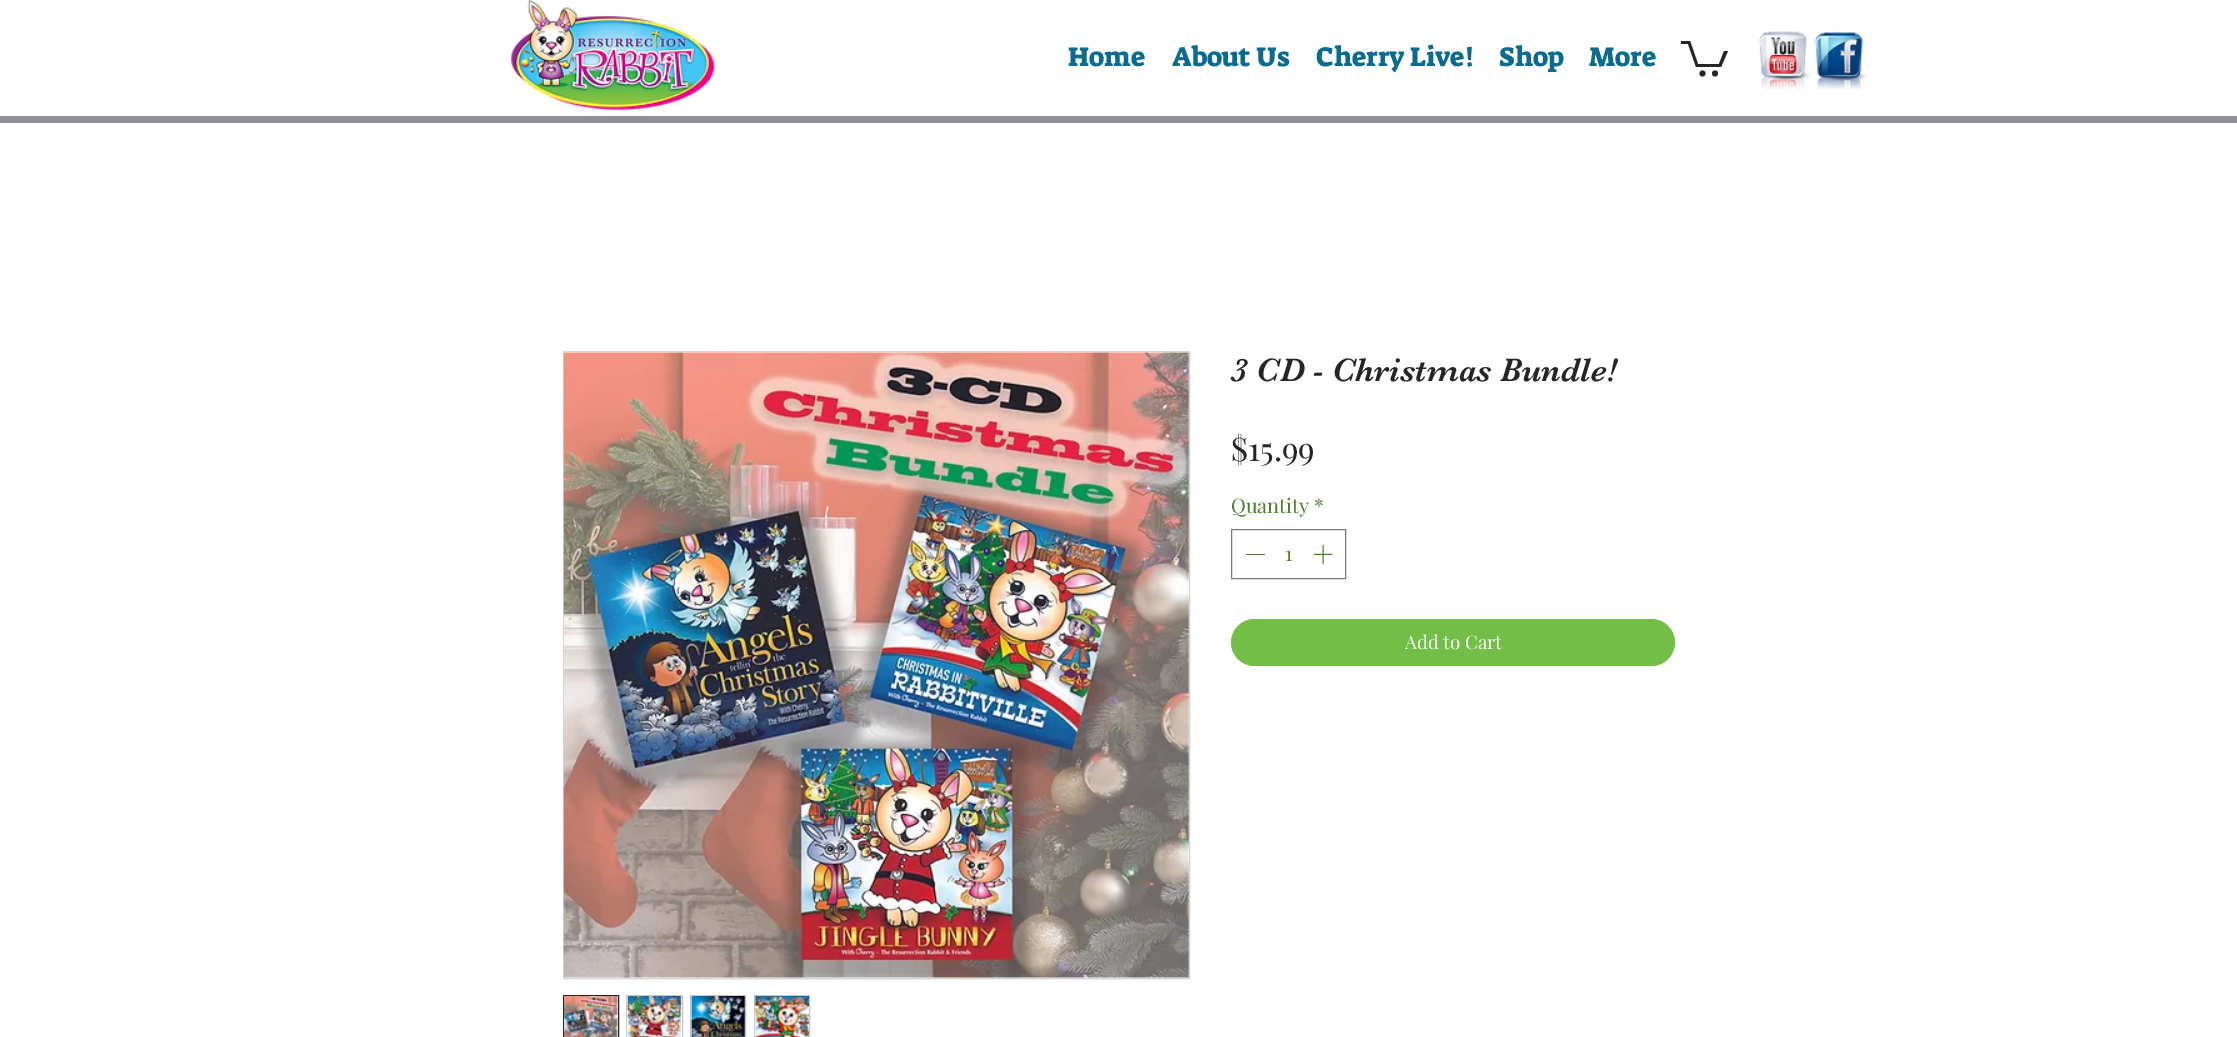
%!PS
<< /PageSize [2237 1037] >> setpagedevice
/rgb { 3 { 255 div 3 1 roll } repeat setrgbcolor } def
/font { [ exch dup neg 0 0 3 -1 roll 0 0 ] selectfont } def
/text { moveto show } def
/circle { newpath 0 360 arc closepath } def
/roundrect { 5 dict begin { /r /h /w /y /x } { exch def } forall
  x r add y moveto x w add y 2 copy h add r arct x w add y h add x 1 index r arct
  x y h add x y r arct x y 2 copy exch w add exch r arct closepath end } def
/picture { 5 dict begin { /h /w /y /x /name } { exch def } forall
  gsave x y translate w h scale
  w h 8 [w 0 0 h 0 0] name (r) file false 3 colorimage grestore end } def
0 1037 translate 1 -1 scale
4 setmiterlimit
255 255 255 rgb
0 0 2237 1037 rectfill
(img_01.rgb) 510 0 206 111 picture
37 36 39 rgb
1728 51 moveto -7 16 rlineto -25 0 rlineto -8 -23 rlineto -7 0 rlineto 0 -3 rlineto 9 0 rlineto 8 23 rlineto 21 0 rlineto 5 -13 rlineto fill
1715 73.5 3 circle fill
1702.5 73.5 3 circle fill
(img_02.rgb) 1758 31 53 58 picture
(img_03.rgb) 1815 32 53 57 picture
145 142 151 rgb
0 116 2237 7 rectfill
211 211 212 rgb
563.5 351.5 626 627 rectstroke
(img_04.rgb) 563 352 626 626 picture
37 36 39 rgb
563.5 995.5 55 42 rectstroke
(img_05.rgb) 564 996 54 41 picture
200 198 203 rgb
626.5 995.5 56 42 rectstroke
(img_06.rgb) 627 996 55 41 picture
690.5 995.5 55 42 rectstroke
(img_07.rgb) 690 996 56 41 picture
754.5 995.5 55 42 rectstroke
(img_08.rgb) 754 996 55 41 picture
124 124 125 rgb
1231.5 529.5 114 49 rectstroke
76 128 45 rgb
1246 554 19 1 rectfill
(img_09.rgb) 1313 545 20 19 picture
114 190 70 rgb
1231 619 444 47 23.5 roundrect fill
/SuezOne-Regular 27.5 font
10 107 144 rgb
(Home) 1068 66 text
(About Us) 1172 66 text
(Cherry Live!) 1316 66 text
(Shop) 1499 66 text
(More) 1589 66 text
/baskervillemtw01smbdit-Regular 33.75 font
37 36 39 rgb
(3 CD - Christmas Bundle!) 1231 381 text
/PlayfairDisplay-Regular 32.5 font
($15.99) 1231 461 text
/PlayfairDisplay-Regular 20 font
76 128 45 rgb
(Quantity *) 1231 513 text
(1) 1285 561 text
/PlayfairDisplay-Regular 18.75 font
255 255 255 rgb
(Add to Cart) 1405 649 text
showpage
